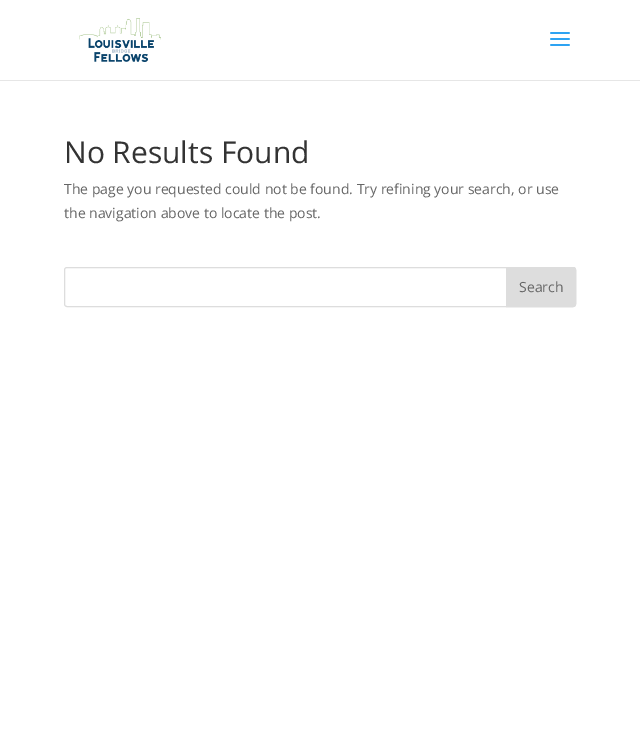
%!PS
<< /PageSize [640 743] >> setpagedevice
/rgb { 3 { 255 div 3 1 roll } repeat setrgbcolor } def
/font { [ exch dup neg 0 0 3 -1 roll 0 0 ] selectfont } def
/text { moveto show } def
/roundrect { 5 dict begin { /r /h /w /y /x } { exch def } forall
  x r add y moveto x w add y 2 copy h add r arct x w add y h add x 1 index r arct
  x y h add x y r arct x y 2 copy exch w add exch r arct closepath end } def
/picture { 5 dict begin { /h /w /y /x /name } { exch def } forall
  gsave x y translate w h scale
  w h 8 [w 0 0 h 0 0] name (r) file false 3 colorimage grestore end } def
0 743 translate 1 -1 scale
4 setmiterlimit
255 255 255 rgb
0 0 640 743 rectfill
230 230 230 rgb
0 80 640 1 rectfill
(img_01.rgb) 79 18 82 44 picture
(img_02.rgb) 550 32 20 14 picture
221 221 221 rgb
64.5 267.5 511 39 2.5 roundrect stroke
506.5 267.5 moveto 66.5 0 rlineto 1.5 0 2.5 1 2.5 2.5 rcurveto 0 34 rlineto 0 1.5 -1 2.5 -2.5 2.5 rcurveto -66.5 0 rlineto closepath gsave fill grestore
stroke
/OpenSans-Regular 30 font
51 51 51 rgb
(No Results Found) 64 163 text
/OpenSans-Regular 14 font
102 102 102 rgb
(The page you requested could not be found. Try refining your search, or use) 64 194 text
(the navigation above to locate the post.) 64 218 text
(Search) 519 292 text
showpage
